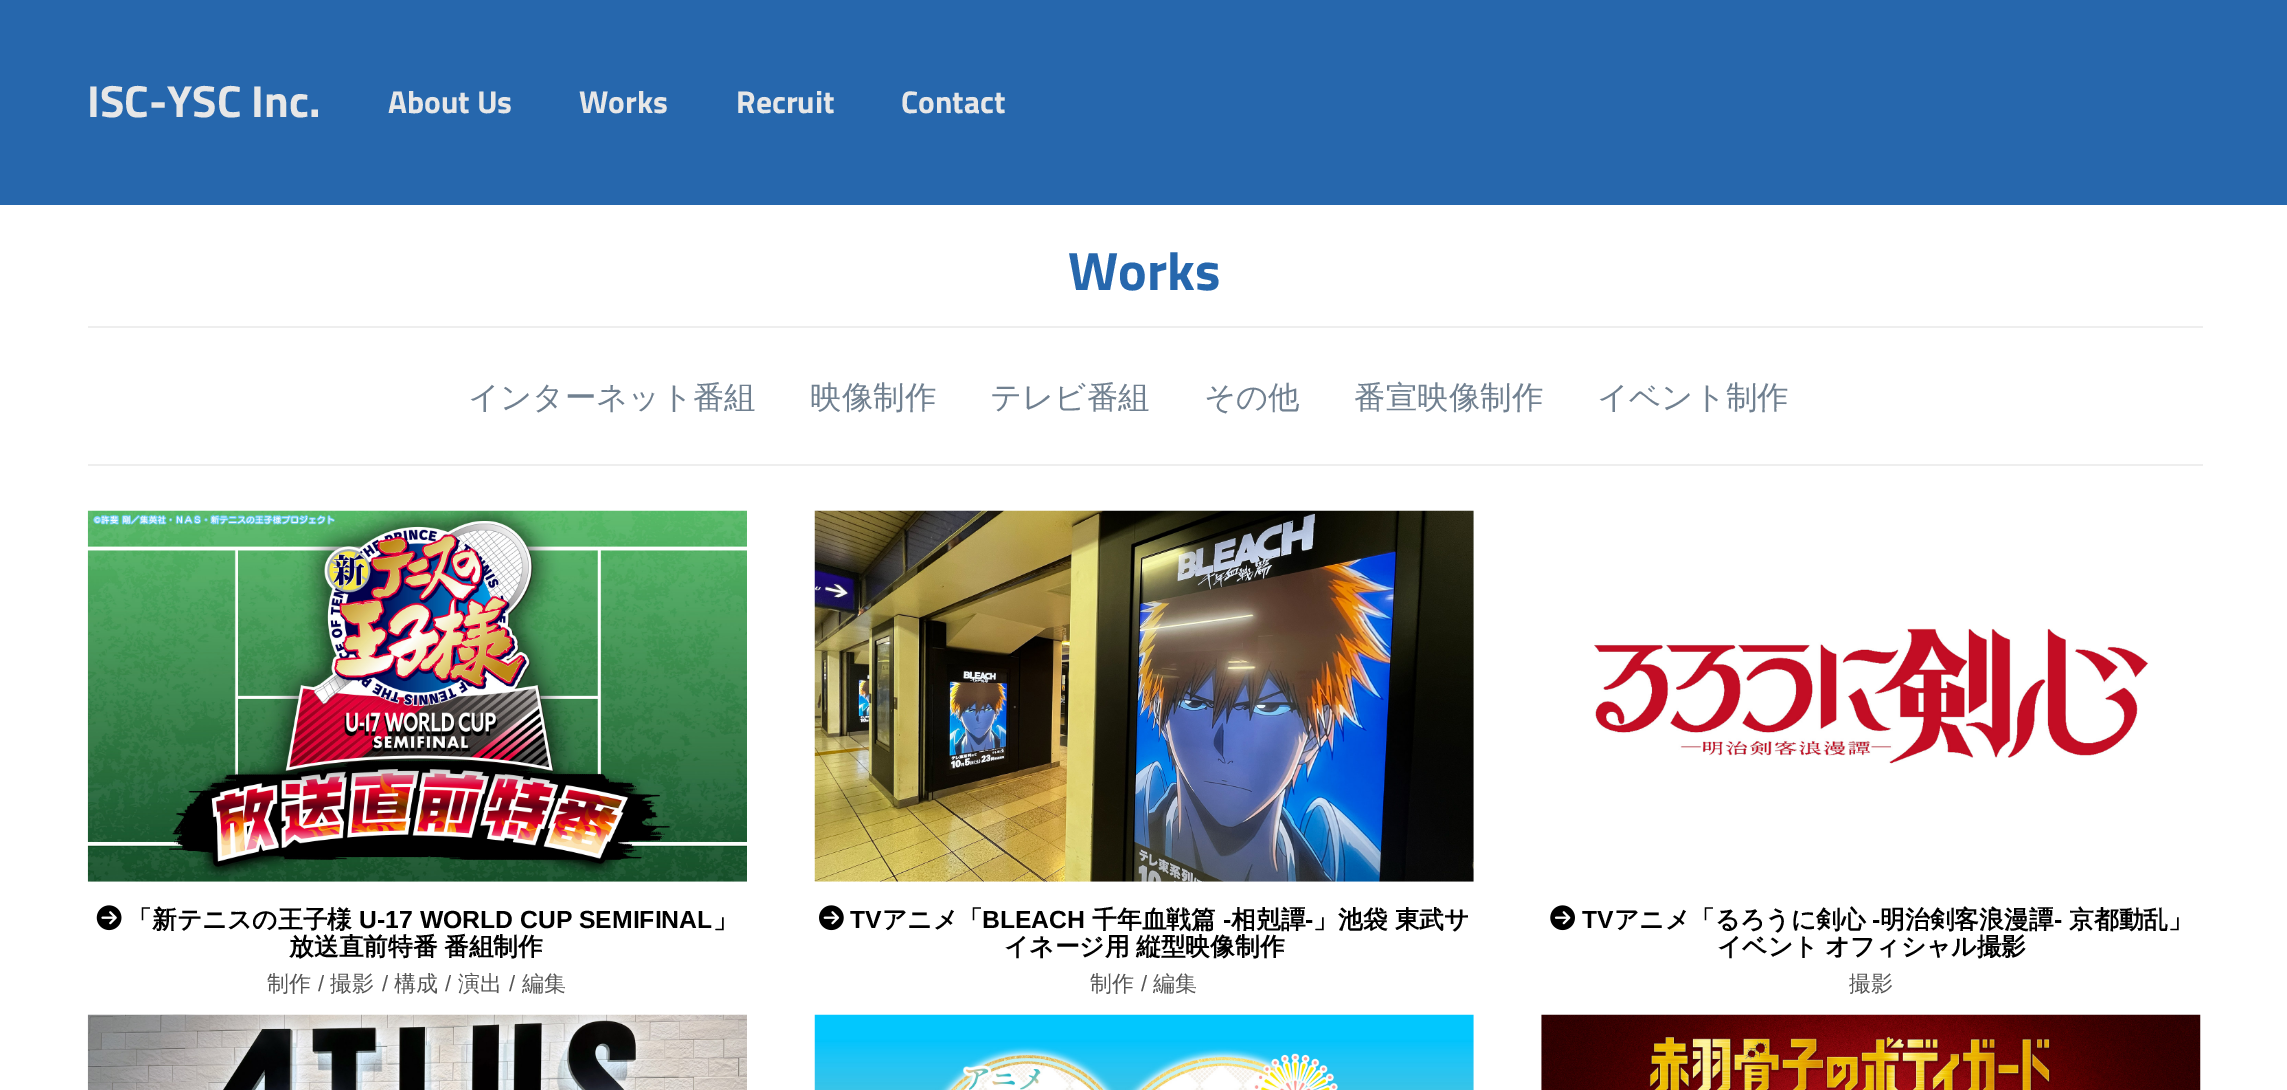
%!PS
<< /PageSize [2287 1090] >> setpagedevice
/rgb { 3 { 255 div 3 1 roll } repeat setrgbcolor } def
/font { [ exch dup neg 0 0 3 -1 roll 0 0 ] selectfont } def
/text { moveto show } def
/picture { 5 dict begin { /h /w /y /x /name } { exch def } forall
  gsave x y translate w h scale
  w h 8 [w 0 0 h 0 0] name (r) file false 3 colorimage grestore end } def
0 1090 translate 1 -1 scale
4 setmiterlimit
255 255 255 rgb
0 0 2287 1090 rectfill
38 103 173 rgb
0 0 2287 205 rectfill
238 238 238 rgb
88 326 2115 2 rectfill
88 464 2115 2 rectfill
(img_01.rgb) 87 510 660 372 picture
(img_02.rgb) 96 905 26 26 picture
(img_03.rgb) 814 510 660 372 picture
(img_04.rgb) 819 905 25 26 picture
(img_05.rgb) 1594 628 555 136 picture
(img_06.rgb) 1550 905 25 26 picture
(img_07.rgb) 87 1014 660 76 picture
(img_08.rgb) 814 1014 660 76 picture
(img_09.rgb) 1541 1014 660 76 picture
/TitilliumWeb-Bold 45 font
231 231 231 rgb
(ISC-YSC Inc.) 87 117 text
/TitilliumWeb-Bold 31.5 font
(About Us) 388 113 text
(Works) 579 113 text
(Recruit) 736 113 text
(Contact) 901 113 text
/TitilliumWeb-Bold 54 font
38 103 173 rgb
(Works) 1068 290 text
/WenQuanYiZenHei-Medium 31.5 font
112 128 144 rgb
(インターネット番組) 468 408 text
(映像制作) 810 408 text
(テレビ番組) 990 408 text
(その他) 1204 408 text
(番宣映像制作) 1354 408 text
(イベント制作) 1597 408 text
/WenQuanYiZenHei-Bold 24.75 font
0 0 0 rgb
(「新テニスの王子様) 127 928 text
/LiberationSans-Bold 24.75 font
(U-17 WORLD CUP SEMIFINAL) 359 928 text
/WenQuanYiZenHei-Bold 24.75 font
(」) 713 928 text
289 955 moveto -1 0 32 (放送直前特番 番組制作) widthshow
/WenQuanYiZenHei-Medium 22 font
85 85 85 rgb
(制作) 267 991 text
/LiberationSans-Regular 22 font
(/) 318 991 text
/WenQuanYiZenHei-Medium 22 font
(撮影) 330 991 text
/LiberationSans-Regular 22 font
(/) 382 991 text
/WenQuanYiZenHei-Medium 22 font
(構成) 394 991 text
/LiberationSans-Regular 22 font
(/) 445 991 text
/WenQuanYiZenHei-Medium 22 font
(演出) 458 991 text
/LiberationSans-Regular 22 font
(/) 509 991 text
/WenQuanYiZenHei-Medium 22 font
(編集) 522 991 text
/LiberationSans-Bold 24.75 font
0 0 0 rgb
(TV) 850 928 text
/WenQuanYiZenHei-Bold 24.75 font
(アニメ「) 882 928 text
/LiberationSans-Bold 24.75 font
(BLEACH) 982 928 text
/WenQuanYiZenHei-Bold 24.75 font
(千年血戦篇) 1092 928 text
/LiberationSans-Bold 24.75 font
(-) 1223 928 text
/WenQuanYiZenHei-Bold 24.75 font
(相剋譚) 1231 928 text
/LiberationSans-Bold 24.75 font
(-) 1305 928 text
/WenQuanYiZenHei-Bold 24.75 font
(」池袋 東武サ) 1313 928 text
1004 955 moveto -1 0 32 (イネージ用 縦型映像制作) widthshow
/WenQuanYiZenHei-Medium 22 font
85 85 85 rgb
(制作) 1090 991 text
/LiberationSans-Regular 22 font
(/) 1141 991 text
/WenQuanYiZenHei-Medium 22 font
(編集) 1153 991 text
/LiberationSans-Bold 24.75 font
0 0 0 rgb
(TV) 1582 928 text
/WenQuanYiZenHei-Bold 24.75 font
(アニメ「るろうに剣心) 1614 928 text
/LiberationSans-Bold 24.75 font
(-) 1872 928 text
/WenQuanYiZenHei-Bold 24.75 font
(明治剣客浪漫譚) 1880 928 text
/LiberationSans-Bold 24.75 font
(-) 2054 928 text
/WenQuanYiZenHei-Bold 24.75 font
(京都動乱」) 2069 928 text
1717 955 moveto -1 0 32 (イベント オフィシャル撮影) widthshow
/WenQuanYiZenHei-Medium 22 font
85 85 85 rgb
(撮影) 1849 991 text
showpage
